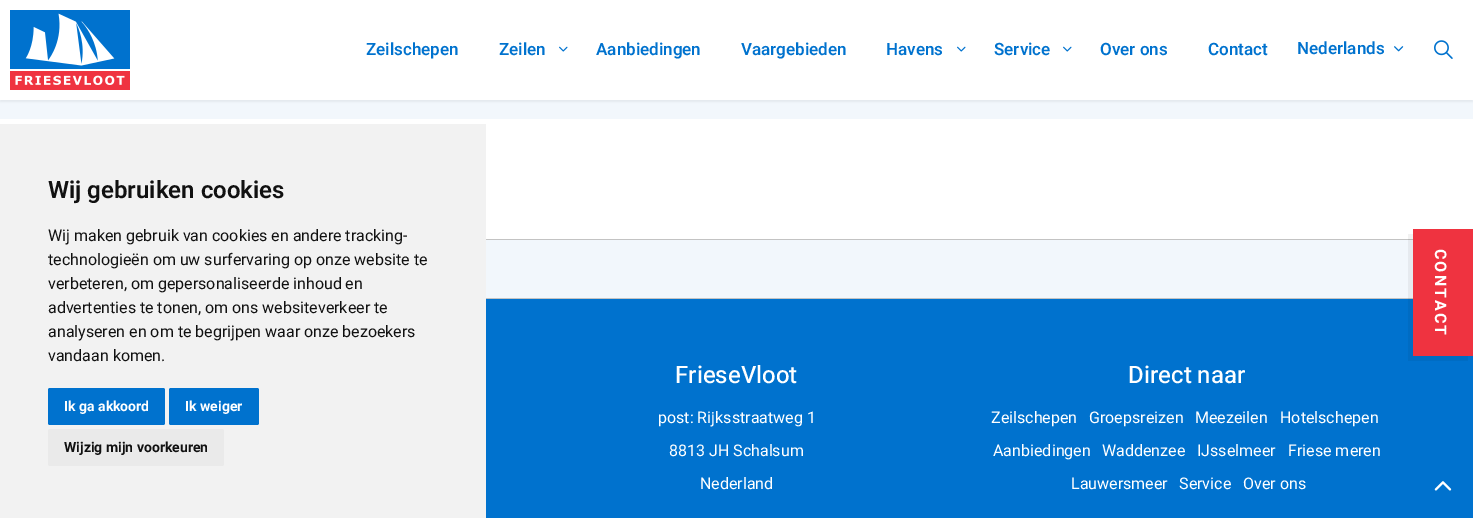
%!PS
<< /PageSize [1473 518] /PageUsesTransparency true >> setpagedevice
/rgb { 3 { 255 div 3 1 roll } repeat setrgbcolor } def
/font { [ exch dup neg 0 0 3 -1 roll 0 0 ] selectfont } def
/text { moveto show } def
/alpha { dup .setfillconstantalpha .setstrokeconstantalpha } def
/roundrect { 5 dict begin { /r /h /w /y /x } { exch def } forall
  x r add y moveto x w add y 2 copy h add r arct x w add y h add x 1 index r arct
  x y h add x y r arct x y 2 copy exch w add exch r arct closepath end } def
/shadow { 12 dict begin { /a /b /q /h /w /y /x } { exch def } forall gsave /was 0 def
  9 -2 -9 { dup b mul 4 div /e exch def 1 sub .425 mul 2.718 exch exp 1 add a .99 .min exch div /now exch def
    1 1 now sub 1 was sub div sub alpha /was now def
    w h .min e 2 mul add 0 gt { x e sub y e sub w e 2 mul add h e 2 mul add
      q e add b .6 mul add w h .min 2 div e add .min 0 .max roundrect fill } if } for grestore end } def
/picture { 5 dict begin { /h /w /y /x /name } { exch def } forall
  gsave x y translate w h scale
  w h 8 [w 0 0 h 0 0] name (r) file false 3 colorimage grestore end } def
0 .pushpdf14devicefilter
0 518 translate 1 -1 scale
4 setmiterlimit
242 247 252 rgb
0 0 1473 518 rectfill
255 255 255 rgb
0 119 1473 120 rectfill
242 242 242 rgb
0 124 486 394 rectfill
0 114 206 rgb
48 388 117 37 2 roundrect fill
169 388 90 37 2 roundrect fill
234 234 234 rgb
48 429 176 37 2 roundrect fill
0 0 0 rgb
0 2 1473 100 0 1 0.05 shadow
255 255 255 rgb
0 0 1473 100 rectfill
(img_01.rgb) 10 10 120 80 picture
(img_02.rgb) 559 46 9 6 picture
(img_02.rgb) 957 46 9 6 picture
(img_02.rgb) 1063 46 9 6 picture
(img_03.rgb) 1394 46 10 6 picture
(img_04.rgb) 1434 40 19 19 picture
0 114 206 rgb
486 299 987 219 rectfill
195 195 195 rgb
486 239 927 1 rectfill
486 298 927 1 rectfill
0.05 alpha
0 0 0 rgb
1408 234 moveto 0 127 rlineto 60 0 rlineto 0 -5 rlineto -55 0 rlineto 0 -122 rlineto closepath fill
1 alpha
239 51 64 rgb
1413 229 60 127 rectfill
(img_05.rgb) 1434 481 18 10 picture
/Roboto-SemiBold 24 font
17 17 17 rgb
(Wij gebruiken cookies) 48 198 text
/Roboto-Regular 16 font
(Wij maken gebruik van cookies en andere tracking-) 48 241 text
(technologieën om uw surfervaring op onze website te) 48 265 text
(verbeteren, om gepersonaliseerde inhoud en) 48 289 text
(advertenties te tonen, om ons websiteverkeer te) 48 313 text
(analyseren en om te begrijpen waar onze bezoekers) 48 337 text
(vandaan komen.) 48 361 text
/Roboto-Bold 14 font
255 255 255 rgb
(Ik ga akkoord) 64 411 text
(Ik weiger) 185 411 text
17 17 17 rgb
(Wijzig mijn voorkeuren) 64 452 text
/Heebo-SemiBold 17 font
0 114 206 rgb
(Zeilschepen) 366 55 text
(Zeilen) 499 55 text
(Aanbiedingen) 596 55 text
(Vaargebieden) 741 55 text
(Havens) 886 55 text
(Service) 994 55 text
(Over ons) 1100 55 text
(Contact) 1208 55 text
(Nederlands) 1297 54 text
/Heebo-Bold 16 font
255 255 255 rgb
gsave 1435 249 translate 90 rotate 0 0 moveto 2 0 (CONTACT) ashow grestore
/Heebo-Medium 24 font
(FrieseVloot) 675 383 text
/Heebo-Regular 16 font
(post: Rijksstraatweg 1) 658 423 text
(8813 JH Schalsum) 669 456 text
(Nederland) 700 489 text
/Heebo-Medium 24 font
(Direct naar) 1128 383 text
/Heebo-Regular 16 font
(Zeilschepen) 991 423 text
(Groepsreizen) 1089 423 text
(Meezeilen) 1195 423 text
(Hotelschepen) 1280 423 text
(Aanbiedingen) 993 456 text
(Waddenzee) 1102 456 text
(IJsselmeer) 1197 456 text
(Friese meren) 1288 456 text
(Lauwersmeer) 1071 489 text
(Service) 1179 489 text
(Over ons) 1243 489 text
.poppdf14devicefilter showpage
